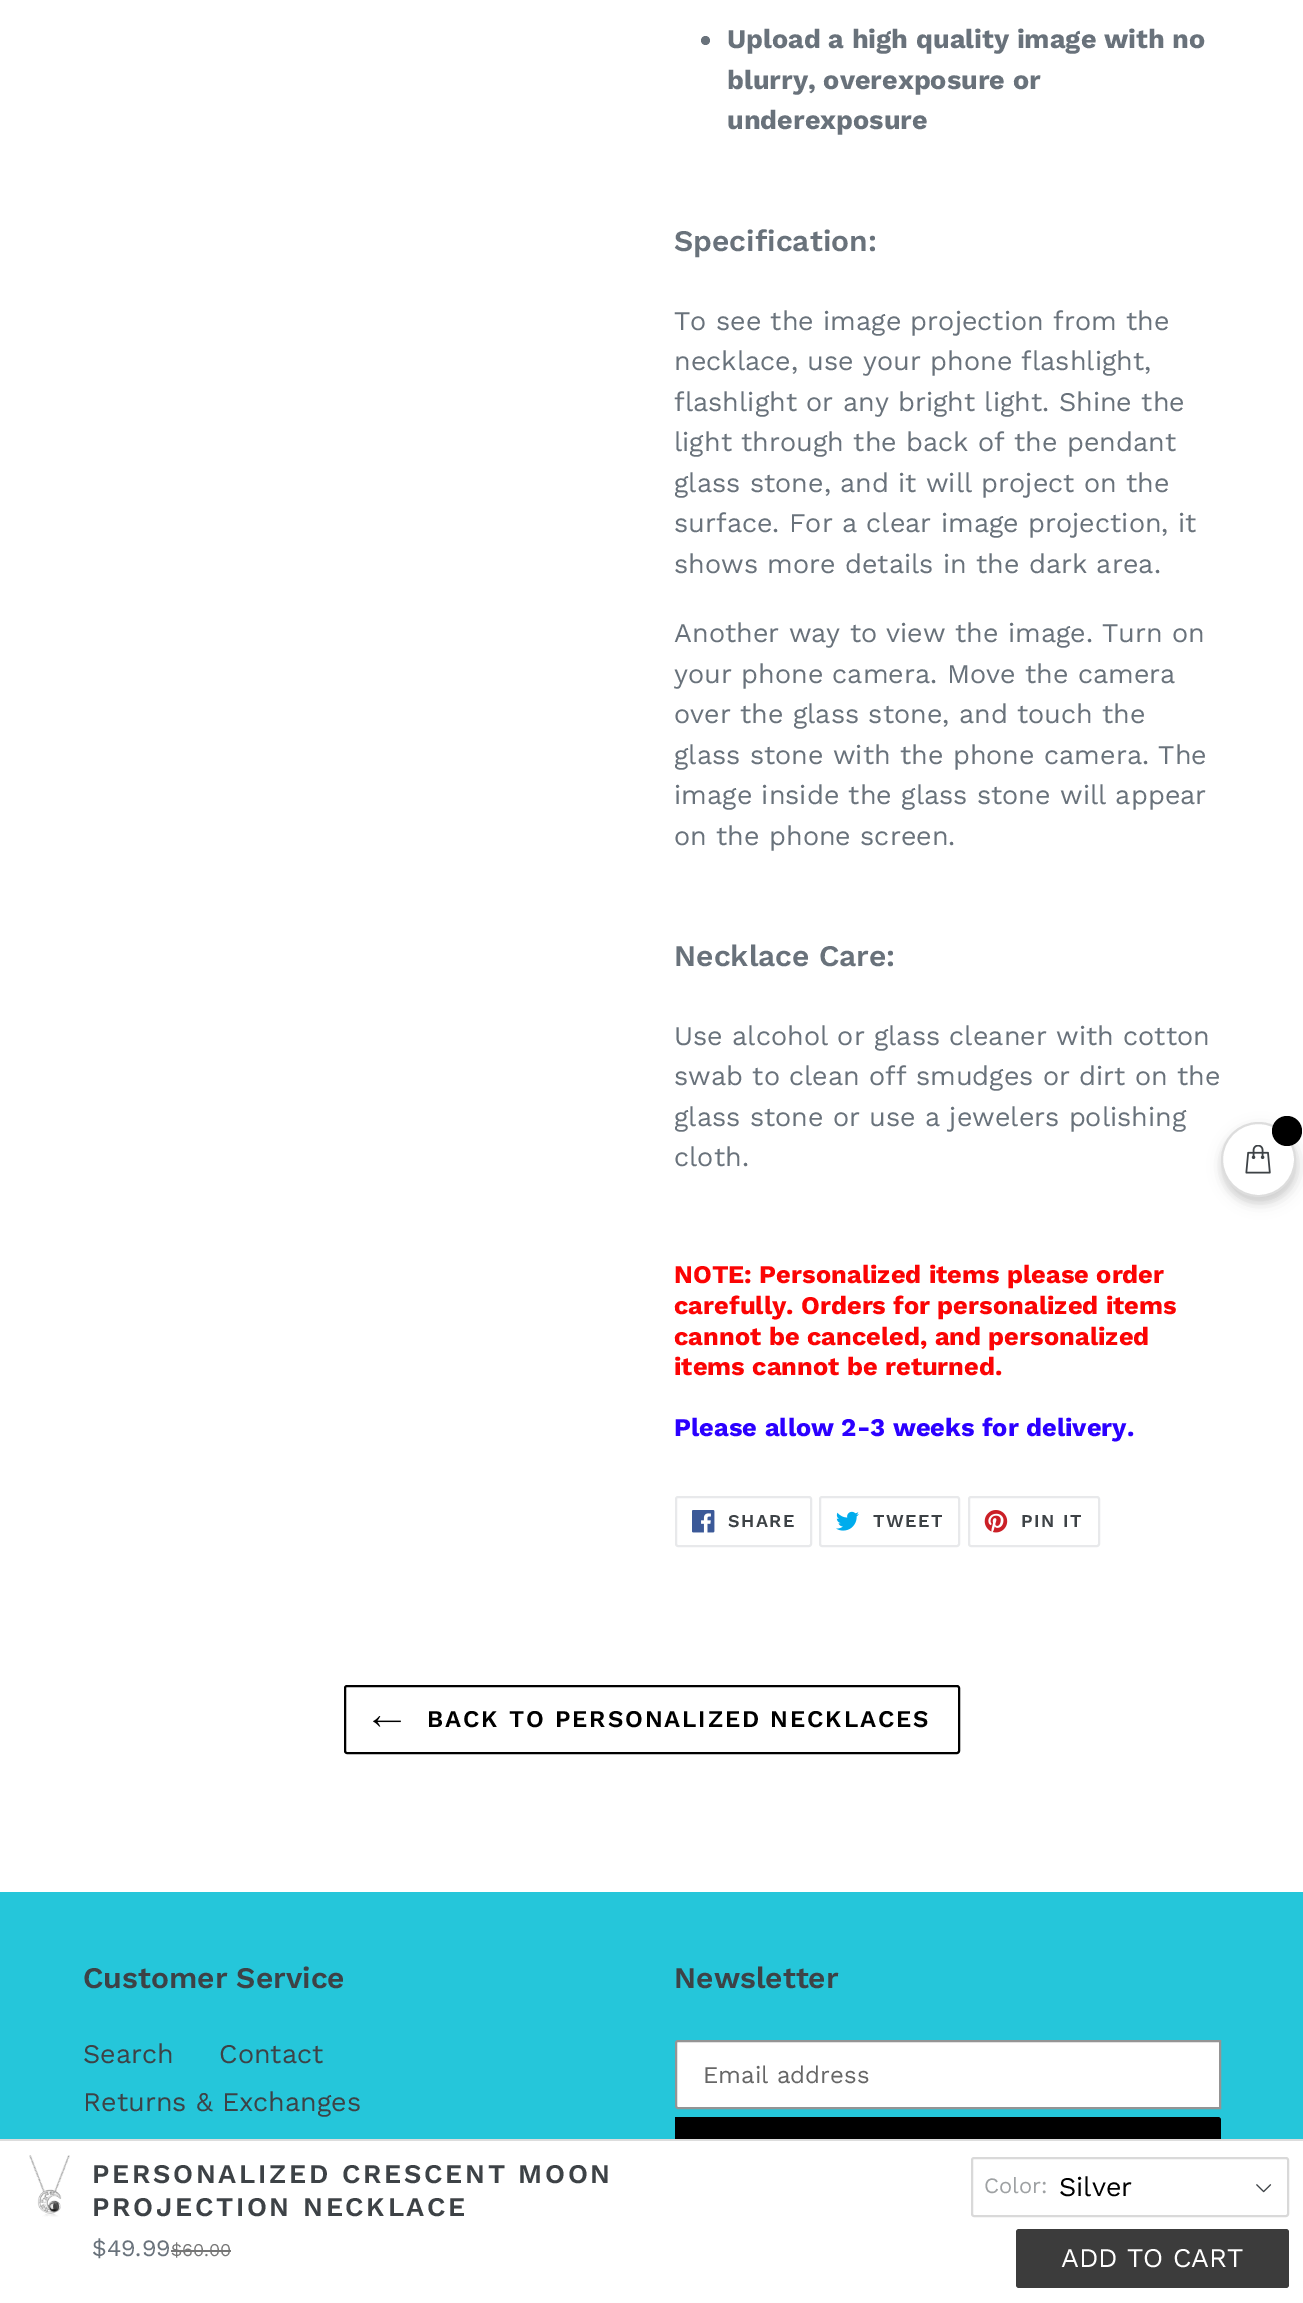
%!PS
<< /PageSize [1303 2303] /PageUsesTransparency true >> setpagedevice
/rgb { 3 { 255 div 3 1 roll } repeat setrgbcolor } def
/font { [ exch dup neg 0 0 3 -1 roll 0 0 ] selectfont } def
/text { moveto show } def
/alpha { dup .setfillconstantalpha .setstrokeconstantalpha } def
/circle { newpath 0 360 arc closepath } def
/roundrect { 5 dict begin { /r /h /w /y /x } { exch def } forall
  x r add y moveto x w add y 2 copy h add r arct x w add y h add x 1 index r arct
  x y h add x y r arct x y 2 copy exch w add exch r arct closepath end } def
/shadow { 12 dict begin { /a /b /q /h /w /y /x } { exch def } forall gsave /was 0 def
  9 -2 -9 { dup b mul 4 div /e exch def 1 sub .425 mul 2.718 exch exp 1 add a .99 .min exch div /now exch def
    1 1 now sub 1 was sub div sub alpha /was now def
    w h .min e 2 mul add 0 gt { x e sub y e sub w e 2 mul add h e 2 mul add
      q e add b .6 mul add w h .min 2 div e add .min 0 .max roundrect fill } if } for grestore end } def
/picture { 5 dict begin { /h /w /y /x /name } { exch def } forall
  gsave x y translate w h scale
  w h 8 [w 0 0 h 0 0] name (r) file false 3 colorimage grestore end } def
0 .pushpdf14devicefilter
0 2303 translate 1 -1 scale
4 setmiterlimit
255 255 255 rgb
0 0 1303 2303 rectfill
105 114 123 rgb
705.5 40.5 4.5 circle fill
232 233 235 rgb
2 setlinewidth
676 1497 135 49 2 roundrect stroke
(img_01.rgb) 692 1510 23 23 picture
820 1497 139 49 2 roundrect stroke
(img_02.rgb) 836 1511 23 20 picture
969 1497 130 49 2 roundrect stroke
(img_03.rgb) 984 1510 24 23 picture
0 0 0 rgb
345 1686 614 67 2 roundrect stroke
(img_04.rgb) 373 1716 28 11 picture
37 198 218 rgb
0 1892 1303 247 rectfill
255 255 255 rgb
678 2041 moveto 542 0 rlineto 0 67 rlineto -542 0 rlineto -1 0 -2 -1 -2 -2 rcurveto 0 -63 rlineto 0 -1 1 -2 2 -2 rcurveto closepath gsave fill grestore
148 148 148 rgb
stroke
0 0 0 rgb
675 2117 moveto 543 0 rlineto 1.5 0 3 1.5 3 3 rcurveto 0 63 rlineto 0 1.5 -1.5 3 -3 3 rcurveto -543 0 rlineto closepath fill
1221 1128 75 75 37.5 3 0.08 shadow
1223 1128 75 75 37.5 7.5 0.12 shadow
255 255 255 rgb
1258.5 1159.5 36.5 circle gsave fill grestore
221 221 221 rgb
stroke
0 0 0 rgb
1287 1131 15 circle fill
(img_05.rgb) 1245 1145 26 29 picture
255 255 255 rgb
675 2141 546 45 rectfill
221 221 221 rgb
0 2139 1303 2 rectfill
(img_06.rgb) 29 2155 41 62 picture
118 118 118 rgb
171 2250 60 2 rectfill
217 217 217 rgb
972 2158 316 58 2 roundrect stroke
(img_07.rgb) 1256 2184 16 9 picture
60 60 60 rgb
1016 2229 273 59 3 roundrect fill
/WorkSans-Bold 27 font
105 114 123 rgb
(Upload a high quality image with no) 727 48 text
(blurry, overexposure or) 727 89 text
(underexposure) 727 129 text
/WorkSans-SemiBold 30 font
(Specification:) 674 251 text
/WorkSans-Regular 27 font
(To see the image projection from the) 674 330 text
(necklace, use your phone flashlight,) 674 370 text
(flashlight or any bright light. Shine the) 674 411 text
(light through the back of the pendant) 674 451 text
(glass stone, and it will project on the) 674 492 text
(surface. For a clear image projection, it) 674 532 text
(shows more details in the dark area.) 674 573 text
(Another way to view the image. Turn on) 674 642 text
(your phone camera. Move the camera) 674 683 text
(over the glass stone, and touch the) 674 723 text
(glass stone with the phone camera. The) 674 764 text
(image inside the glass stone will appear) 674 804 text
(on the phone screen.) 674 845 text
/WorkSans-SemiBold 30 font
(Necklace Care:) 674 966 text
/WorkSans-Regular 27 font
(Use alcohol or glass cleaner with cotton) 674 1045 text
(swab to clean off smudges or dirt on the) 674 1085 text
(glass stone or use a jewelers polishing) 674 1126 text
(cloth.) 674 1166 text
/WorkSans-Bold 25.5 font
251 4 4 rgb
(NOTE: Personalized items please order) 674 1283 text
(carefully. Orders for personalized items) 674 1314 text
(cannot be canceled, and personalized) 674 1345 text
(items cannot be returned.) 674 1375 text
43 0 255 rgb
(Please allow 2-3 weeks for delivery.) 674 1436 text
/WorkSans-SemiBold 18 font
61 66 70 rgb
728 1527 moveto 1.5 0 (SHARE) ashow
873 1527 moveto 1.5 0 (TWEET) ashow
1021 1527 moveto 1.5 0 (PIN IT) ashow
/WorkSans-SemiBold 24 font
0 0 0 rgb
427 1727 moveto 1.9 0 (BACK TO PERSONALIZED NECKLACES) ashow
/WorkSans-SemiBold 30 font
61 66 70 rgb
(Customer Service) 83 1988 text
/WorkSans-Regular 27 font
(Search) 83 2063 text
(Contact) 219 2063 text
(Returns & Exchanges) 83 2111 text
/WorkSans-SemiBold 30 font
(Newsletter) 674 1988 text
/WorkSans-Regular 24 font
102 102 102 rgb
(Email address) 703 2083 text
/WorkSans-SemiBold 27 font
61 66 70 rgb
92 2183 moveto 2.7 0 (PERSONALIZED CRESCENT MOON) ashow
92 2216 moveto 2.7 0 (PROJECTION NECKLACE) ashow
/WorkSans-Regular 23.5 font
105 114 123 rgb
($49.99) 92 2256 text
/WorkSans-Regular 18 font
118 118 118 rgb
($60.00) 171 2256 text
/WorkSans-Regular 22 font
158 161 163 rgb
(Color:) 984 2193 text
/WorkSans-Regular 27 font
0 0 0 rgb
(Silver) 1059 2196 text
255 255 255 rgb
(ADD TO CART) 1061 2267 text
.poppdf14devicefilter showpage
